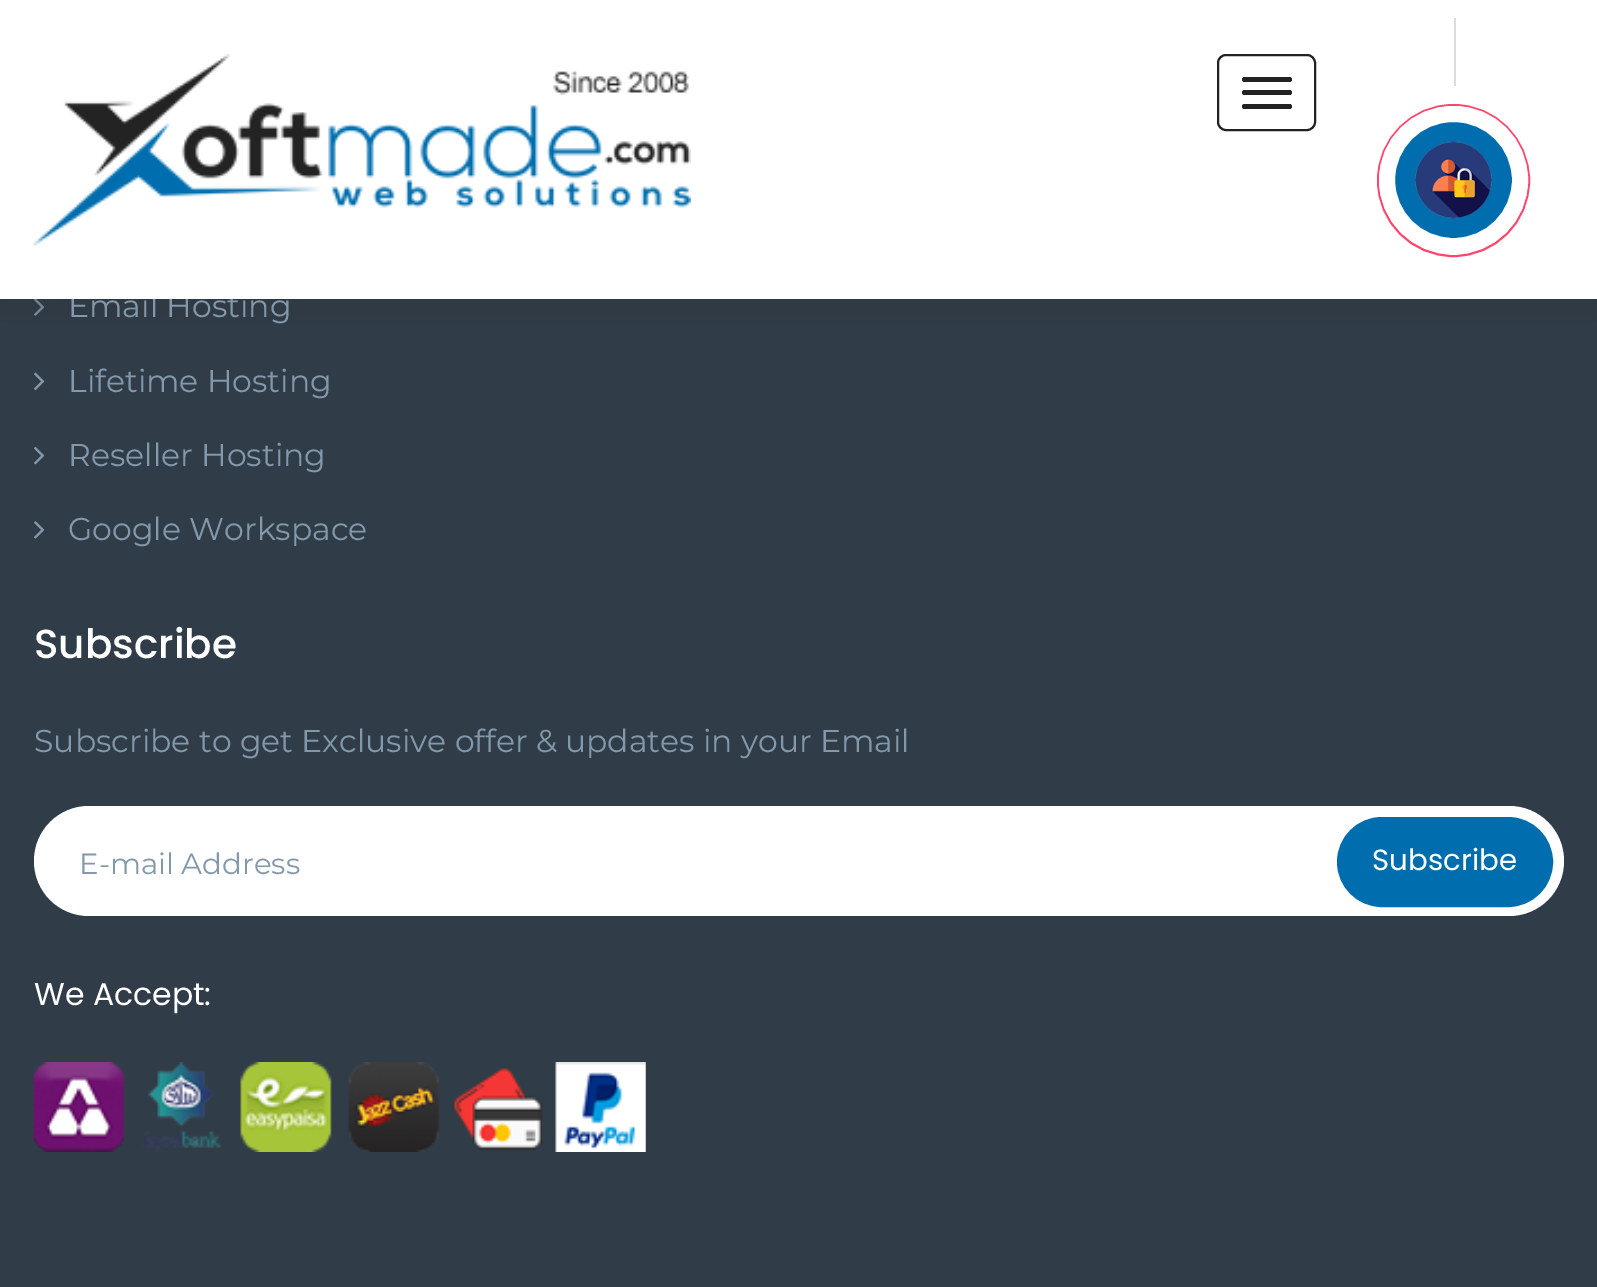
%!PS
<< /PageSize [1597 1287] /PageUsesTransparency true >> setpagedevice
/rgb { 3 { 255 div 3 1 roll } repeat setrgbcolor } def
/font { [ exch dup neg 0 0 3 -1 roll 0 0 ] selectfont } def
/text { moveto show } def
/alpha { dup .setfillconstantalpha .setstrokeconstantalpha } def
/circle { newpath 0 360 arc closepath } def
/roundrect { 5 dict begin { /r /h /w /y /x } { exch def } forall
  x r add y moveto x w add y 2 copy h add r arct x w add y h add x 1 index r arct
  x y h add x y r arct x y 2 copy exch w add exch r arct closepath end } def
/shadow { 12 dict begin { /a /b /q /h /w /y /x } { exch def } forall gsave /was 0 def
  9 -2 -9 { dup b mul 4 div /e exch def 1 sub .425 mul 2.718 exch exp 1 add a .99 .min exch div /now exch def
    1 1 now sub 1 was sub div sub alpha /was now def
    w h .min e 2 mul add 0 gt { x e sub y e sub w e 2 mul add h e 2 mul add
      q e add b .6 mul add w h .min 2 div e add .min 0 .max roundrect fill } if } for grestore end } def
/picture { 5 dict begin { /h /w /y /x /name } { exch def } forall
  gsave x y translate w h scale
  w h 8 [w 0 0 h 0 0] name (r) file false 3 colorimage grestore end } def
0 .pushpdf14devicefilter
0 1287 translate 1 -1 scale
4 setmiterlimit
48 61 72 rgb
0 0 1597 1287 rectfill
(img_03.rgb) 34 299 11 17 picture
47 44 44 rgb
0 20 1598 300 0 10 0.2 shadow
(img_04.rgb) 34 372 11 19 picture
(img_05.rgb) 34 446 11 19 picture
(img_06.rgb) 34 521 11 18 picture
255 255 255 rgb
89 806 moveto 1248 0 rlineto 0 110 rlineto -1248 0 rlineto -30.5 0 -55 -24.5 -55 -55 rcurveto 0 -30.5 24.5 -55 55 -55 rcurveto closepath fill
1337 806 moveto 172 0 rlineto 30.5 0 55 24.5 55 55 rcurveto 0 30.5 -24.5 55 -55 55 rcurveto -172 0 rlineto closepath fill
0 110 174 rgb
1338 818 214 88 44 roundrect gsave fill grestore
2 setlinewidth
stroke
(img_07.rgb) 33 1062 613 90 picture
/Montserrat-Regular 31.5 font
131 153 171 rgb
(Email Hosting) 68 317 text
255 255 255 rgb
0 0 1597 299 rectfill
252 70 107 rgb
1453.5 180.5 75.5 circle stroke
0 110 174 rgb
1387 114 133 132 66 roundrect gsave fill grestore
255 255 255 rgb
16 setlinewidth
stroke
(img_02.rgb) 1415 141 77 78 picture
34 34 34 rgb
2 setlinewidth
1218 55 97 75 8 roundrect stroke
1242 104 50 5 2.5 roundrect fill
1242 90 50 5 2.5 roundrect fill
1242 77 50 5 2.5 roundrect fill
220 220 220 rgb
1454 18 2 68 rectfill
(img_01.rgb) 33 54 658 192 picture
131 153 171 rgb
(Lifetime Hosting) 68 392 text
(Reseller Hosting) 68 466 text
(Google Workspace) 68 540 text
/Poppins-Medium 40.5 font
255 255 255 rgb
(Subscribe) 34 658 text
/Montserrat-Regular 31.5 font
131 153 171 rgb
(Subscribe to get Exclusive offer & updates in your Email) 34 752 text
/Montserrat-Regular 29.25 font
(E-mail Address) 79 874 text
/Poppins-Regular 29.25 font
255 255 255 rgb
(Subscribe) 1372 870 text
/Poppins-Regular 31.5 font
(We Accept:) 34 1005 text
.poppdf14devicefilter showpage
